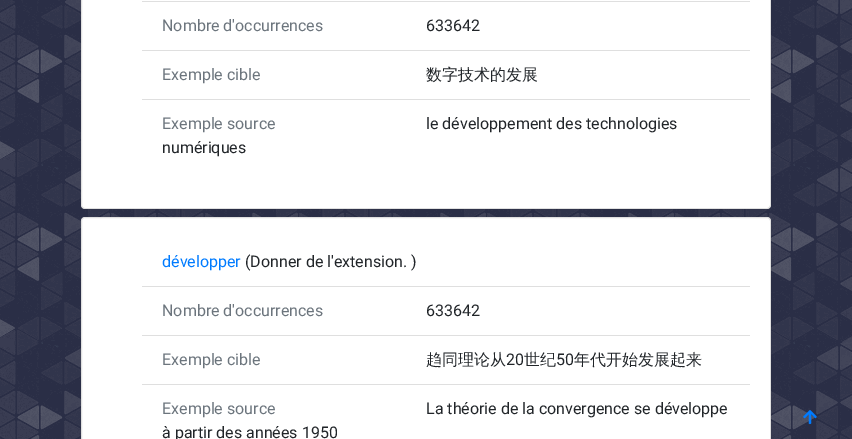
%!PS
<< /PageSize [852 439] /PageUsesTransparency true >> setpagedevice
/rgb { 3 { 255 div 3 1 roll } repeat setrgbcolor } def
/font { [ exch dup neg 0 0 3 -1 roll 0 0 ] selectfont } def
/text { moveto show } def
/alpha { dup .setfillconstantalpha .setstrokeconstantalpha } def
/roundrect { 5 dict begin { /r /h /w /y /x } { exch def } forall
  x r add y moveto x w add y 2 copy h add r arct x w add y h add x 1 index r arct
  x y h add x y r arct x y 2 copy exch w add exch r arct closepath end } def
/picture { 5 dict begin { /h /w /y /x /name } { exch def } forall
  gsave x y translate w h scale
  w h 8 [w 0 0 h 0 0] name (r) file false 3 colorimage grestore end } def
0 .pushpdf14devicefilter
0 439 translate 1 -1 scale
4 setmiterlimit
42 46 70 rgb
0 0 852 439 rectfill
(img_01.rgb) 0 0 852 439 picture
255 255 255 rgb
81 -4 690 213 4 roundrect fill
0.12 alpha
0 0 0 rgb
81.5 -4.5 689 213 3.5 roundrect stroke
1 alpha
223 223 223 rgb
142 1 608 1 rectfill
142 50 608 1 rectfill
142 99 608 1 rectfill
255 255 255 rgb
81 217 690 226 4 roundrect fill
0.12 alpha
0 0 0 rgb
81.5 217.5 689 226 3.5 roundrect stroke
1 alpha
223 223 223 rgb
142 286 608 1 rectfill
142 335 608 1 rectfill
142 384 608 1 rectfill
(img_02.rgb) 803 410 14 14 picture
/Roboto-Regular 16 font
108 117 125 rgb
(Nombre d'occurrences) 162 31 text
33 37 41 rgb
(633642) 426 31 text
108 117 125 rgb
(Exemple cible) 162 80 text
/WenQuanYiZenHei-Medium 16 font
33 37 41 rgb
(数字技术的发展) 426 80 text
/Roboto-Regular 16 font
108 117 125 rgb
(Exemple source) 162 129 text
33 37 41 rgb
(le développement des technologies) 426 129 text
(numériques) 162 153 text
0 123 255 rgb
(développer) 162 267 text
33 37 41 rgb
(\(Donner de l'extension. \)) 245 267 text
108 117 125 rgb
(Nombre d'occurrences) 162 316 text
33 37 41 rgb
(633642) 426 316 text
108 117 125 rgb
(Exemple cible) 162 365 text
/WenQuanYiZenHei-Medium 16 font
33 37 41 rgb
(趋同理论从) 426 365 text
/Roboto-Regular 16 font
(20) 506 365 text
/WenQuanYiZenHei-Medium 16 font
(世纪) 524 365 text
/Roboto-Regular 16 font
(50) 556 365 text
/WenQuanYiZenHei-Medium 16 font
(年代开始发展起来) 574 365 text
/Roboto-Regular 16 font
108 117 125 rgb
(Exemple source) 162 414 text
33 37 41 rgb
(La théorie de la convergence se développe) 426 414 text
(à partir des années 1950) 162 438 text
.poppdf14devicefilter showpage
